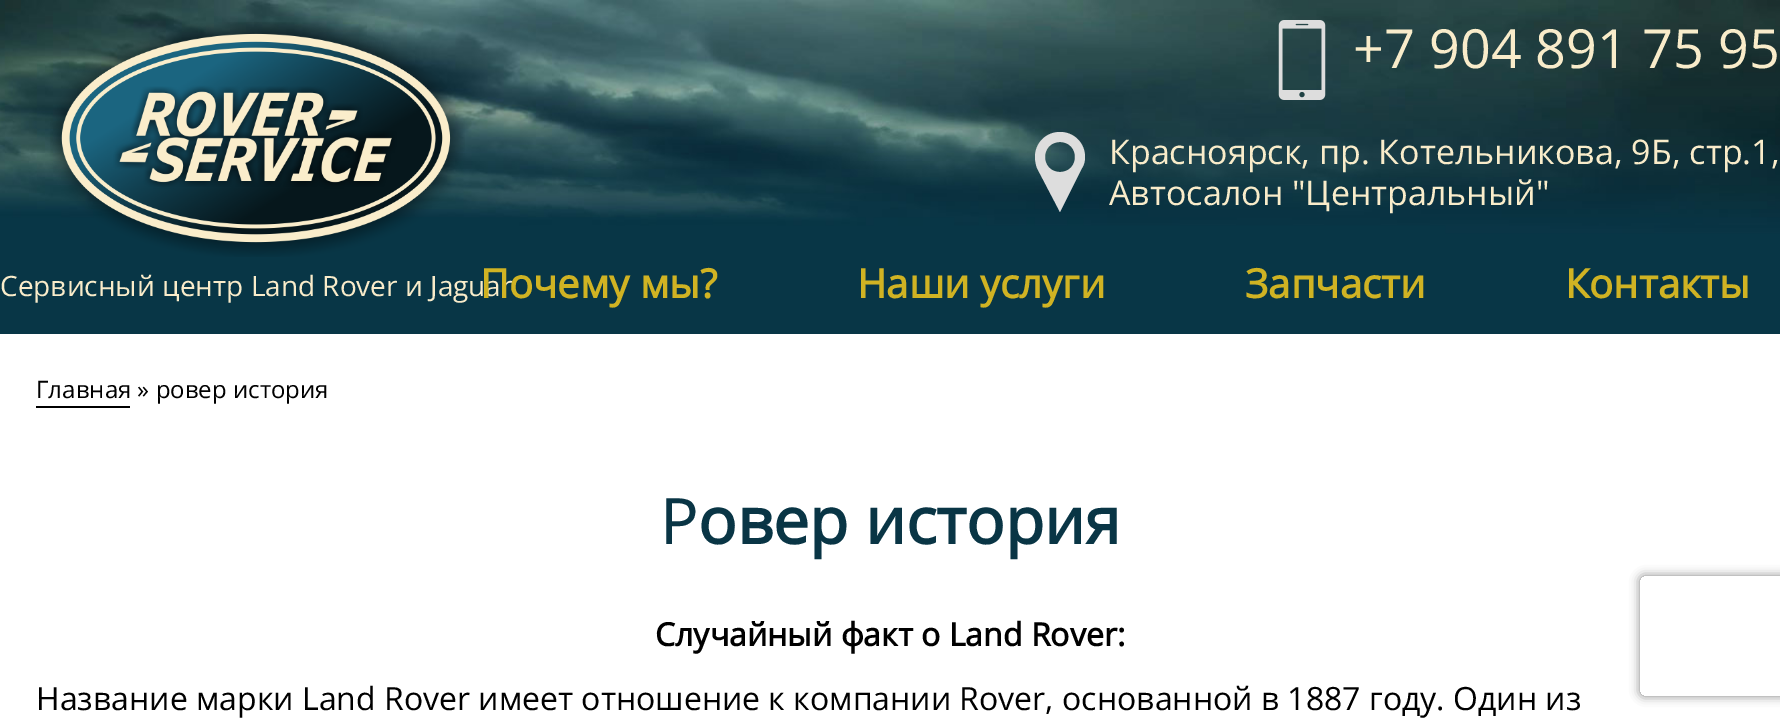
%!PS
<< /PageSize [1780 724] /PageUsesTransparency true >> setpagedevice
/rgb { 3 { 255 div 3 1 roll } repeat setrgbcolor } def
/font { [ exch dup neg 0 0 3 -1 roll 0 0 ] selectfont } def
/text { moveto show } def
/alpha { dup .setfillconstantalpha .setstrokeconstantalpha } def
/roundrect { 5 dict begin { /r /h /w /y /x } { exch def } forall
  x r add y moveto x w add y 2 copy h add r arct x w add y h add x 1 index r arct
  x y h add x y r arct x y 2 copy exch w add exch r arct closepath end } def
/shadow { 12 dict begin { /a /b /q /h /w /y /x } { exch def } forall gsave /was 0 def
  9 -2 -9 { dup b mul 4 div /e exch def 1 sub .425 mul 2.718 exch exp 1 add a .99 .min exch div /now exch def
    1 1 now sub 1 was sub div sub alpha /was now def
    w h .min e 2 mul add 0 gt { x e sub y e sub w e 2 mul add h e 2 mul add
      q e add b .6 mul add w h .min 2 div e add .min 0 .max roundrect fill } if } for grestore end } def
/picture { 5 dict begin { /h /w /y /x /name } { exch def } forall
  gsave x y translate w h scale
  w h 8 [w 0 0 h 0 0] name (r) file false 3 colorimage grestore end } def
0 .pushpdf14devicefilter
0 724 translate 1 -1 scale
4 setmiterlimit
255 255 255 rgb
0 0 1780 724 rectfill
(img_01.rgb) 0 0 1780 334 picture
(img_02.rgb) 50 22 415 235 picture
(img_03.rgb) 1278 20 48 80 picture
221 221 221 rgb
1060 132 moveto -14 0 -25 11 -25 25 rcurveto 0 4 1 8 2 11 rcurveto 23 44 rlineto 22 -44 rlineto 2 -3 3 -7 3 -11 rcurveto 0 -14 -11 -25 -25 -25 rcurveto closepath 1060 172 moveto -20 0 -20 -30 0 -30 rcurveto 20 0 20 30 0 30 rcurveto closepath fill
0 0 0 rgb
36 406 94 2 rectfill
gsave
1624 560 moveto 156 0 rlineto 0 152 rlineto -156 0 rlineto closepath 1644 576 moveto 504 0 rlineto 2 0 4 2 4 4 rcurveto 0 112 rlineto 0 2 -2 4 -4 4 rcurveto -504 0 rlineto -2 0 -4 -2 -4 -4 rcurveto 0 -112 rlineto 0 -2 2 -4 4 -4 rcurveto closepath eoclip newpath
128 128 128 rgb
1640 576 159 120 4 5 1 shadow
grestore
/OpenSans-Regular 54 font
249 236 202 rgb
(+7 904 891 75 95) 1353 68 text
/OpenSans-Regular 34 font
(Красноярск, пр. Котельникова, 9Б, стр.1,) 1109 164 text
(Автосалон "Центральный") 1109 205 text
/OpenSans-Regular 28 font
(Сервисный центр Land Rover и Jaguar) 0 296 text
/OpenSans-Bold 40 font
208 179 35 rgb
(Почему мы?) 480 298 text
(Наши услуги) 857 298 text
(Запчасти) 1245 298 text
(Контакты) 1565 298 text
/OpenSans-Regular 24 font
0 0 0 rgb
(Главная » ровер история) 36 398 text
/NotoSans-Regular 64 font
9 53 69 rgb
(Р) 660 544 text
/OpenSans-Bold 64 font
(овер история) 698 544 text
/OpenSans-Bold 32 font
0 0 0 rgb
(Случайный факт о Land Rover:) 655 646 text
/OpenSans-Regular 32 font
(Название марки Land Rover имеет отношение к компании Rover, основанной в 1887 году. Один из) 36 710 text
.poppdf14devicefilter showpage
